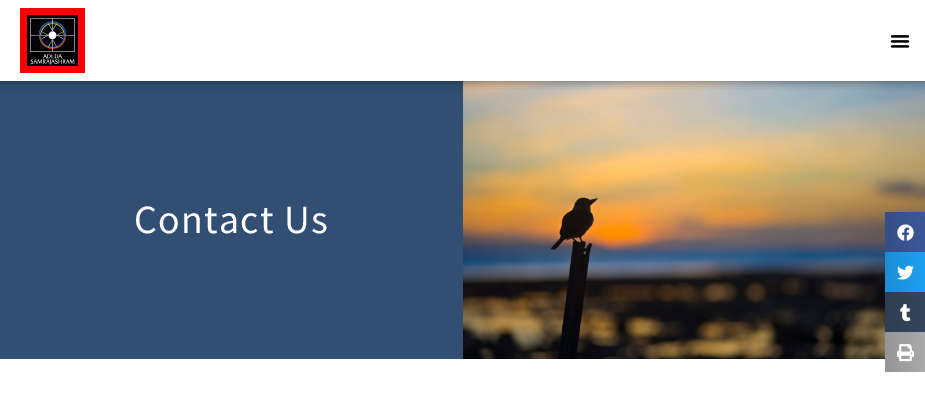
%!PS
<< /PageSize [925 412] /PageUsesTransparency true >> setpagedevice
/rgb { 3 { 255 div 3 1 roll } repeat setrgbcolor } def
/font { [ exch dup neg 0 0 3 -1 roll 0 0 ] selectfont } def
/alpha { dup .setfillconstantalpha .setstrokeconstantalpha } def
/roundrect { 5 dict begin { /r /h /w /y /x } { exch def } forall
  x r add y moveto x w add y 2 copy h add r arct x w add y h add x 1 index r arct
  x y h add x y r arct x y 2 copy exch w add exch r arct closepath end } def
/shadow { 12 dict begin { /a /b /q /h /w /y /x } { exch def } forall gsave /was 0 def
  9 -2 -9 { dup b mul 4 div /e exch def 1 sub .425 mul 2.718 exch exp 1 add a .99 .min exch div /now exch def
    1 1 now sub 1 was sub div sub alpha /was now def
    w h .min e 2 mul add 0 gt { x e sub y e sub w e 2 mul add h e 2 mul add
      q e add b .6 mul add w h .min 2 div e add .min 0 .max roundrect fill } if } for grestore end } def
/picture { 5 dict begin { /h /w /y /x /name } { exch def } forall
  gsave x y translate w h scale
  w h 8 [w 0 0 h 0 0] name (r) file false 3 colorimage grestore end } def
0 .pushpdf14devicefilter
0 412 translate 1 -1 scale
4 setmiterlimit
255 255 255 rgb
0 0 925 412 rectfill
50 79 115 rgb
0 81 463 278 rectfill
(img_07.rgb) 463 81 462 278 picture
gsave
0 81 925 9 rectclip
0 0 0 rgb
0 0 925 81 0 5 0.5 shadow
grestore
(img_01.rgb) 20 8 65 65 picture
(img_02.rgb) 890 35 20 13 picture
gsave 885 212 moveto 40 0 rlineto 0 40 rlineto -40 0 rlineto closepath clip newpath
<< /ShadingType 2 /ColorSpace /DeviceRGB /Coords [885 232 925 232] /Extend [true true] /Function << /FunctionType 2 /Domain [0 1] /C0 [0.204 0.306 0.525] /C1 [0.231 0.349 0.596] /N 1 >> >> shfill grestore
(img_03.rgb) 897 224 17 17 picture
gsave 885 252 moveto 40 0 rlineto 0 40 rlineto -40 0 rlineto closepath clip newpath
<< /ShadingType 2 /ColorSpace /DeviceRGB /Coords [885 272 925 272] /Extend [true true] /Function << /FunctionType 2 /Domain [0 1] /C0 [0.102 0.557 0.835] /C1 [0.114 0.631 0.949] /N 1 >> >> shfill grestore
(img_04.rgb) 897 265 17 15 picture
gsave 885 292 moveto 40 0 rlineto 0 40 rlineto -40 0 rlineto closepath clip newpath
<< /ShadingType 2 /ColorSpace /DeviceRGB /Coords [885 312 925 312] /Extend [true true] /Function << /FunctionType 2 /Domain [0 1] /C0 [0.184 0.243 0.318] /C1 [0.208 0.275 0.361] /N 1 >> >> shfill grestore
(img_05.rgb) 900 304 11 18 picture
gsave 885 332 moveto 40 0 rlineto 0 40 rlineto -40 0 rlineto closepath clip newpath
<< /ShadingType 2 /ColorSpace /DeviceRGB /Coords [885 352 925 352] /Extend [true true] /Function << /FunctionType 2 /Domain [0 1] /C0 [0.588 0.588 0.588] /C1 [0.667 0.667 0.667] /N 1 >> >> shfill grestore
(img_06.rgb) 897 344 17 18 picture
/SourceSansPro-Regular 40 font
255 255 255 rgb
134 233 moveto 1.25 0 (Contact Us) ashow
.poppdf14devicefilter showpage
